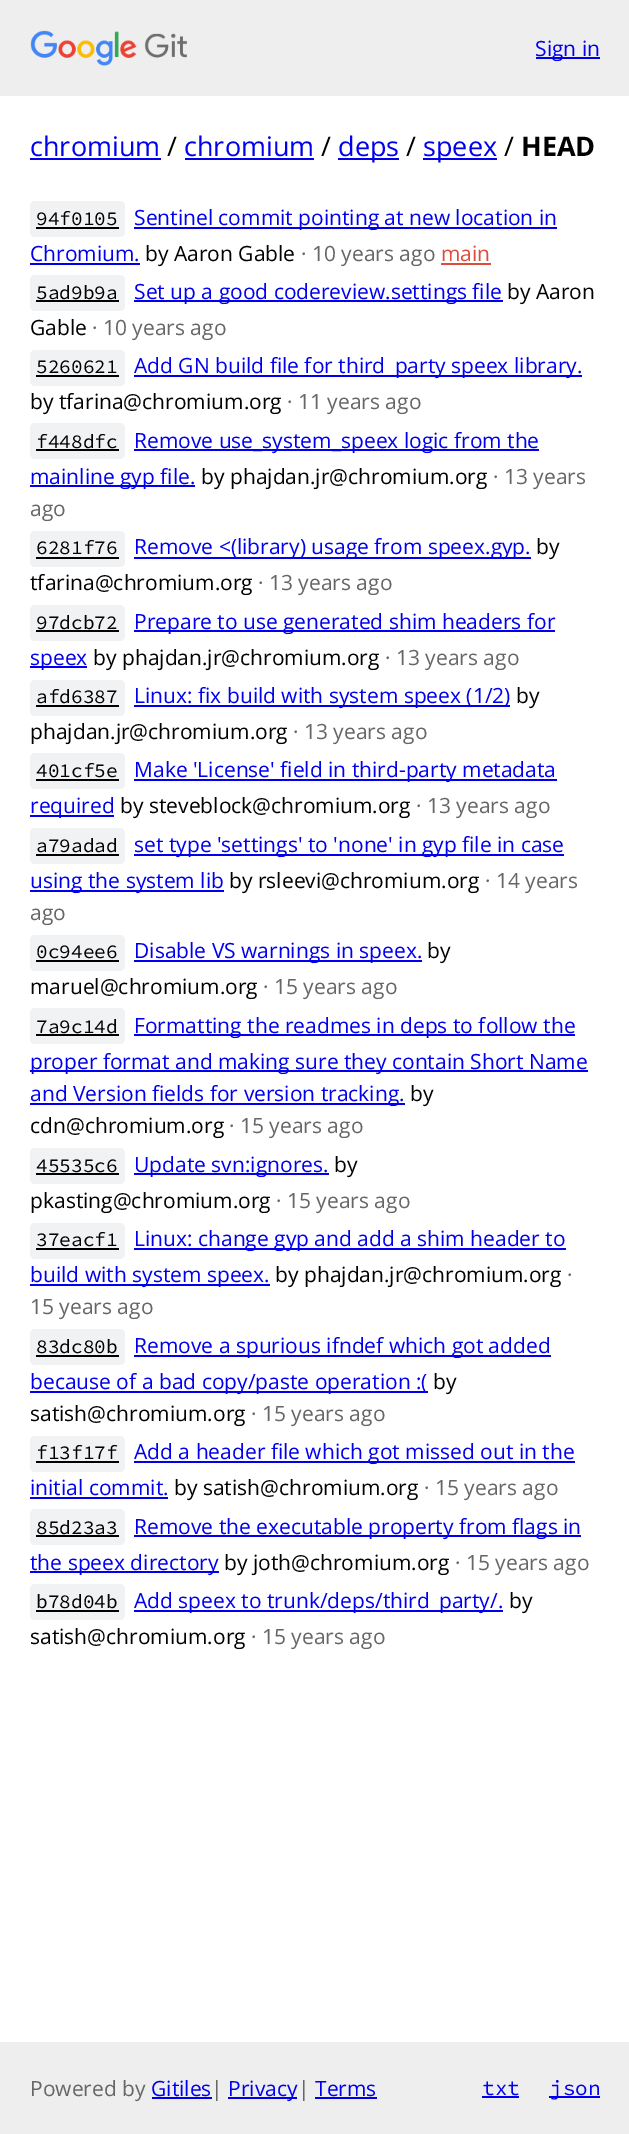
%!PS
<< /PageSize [629 2134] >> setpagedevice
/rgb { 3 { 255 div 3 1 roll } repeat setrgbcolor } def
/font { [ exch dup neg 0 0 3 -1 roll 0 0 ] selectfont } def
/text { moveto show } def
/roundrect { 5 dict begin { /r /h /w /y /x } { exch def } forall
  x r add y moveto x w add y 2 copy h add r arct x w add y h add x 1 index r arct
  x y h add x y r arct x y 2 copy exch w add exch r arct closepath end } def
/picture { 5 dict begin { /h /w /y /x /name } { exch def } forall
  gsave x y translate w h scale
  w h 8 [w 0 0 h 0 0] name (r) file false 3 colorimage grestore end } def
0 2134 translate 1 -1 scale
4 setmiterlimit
255 255 255 rgb
0 0 629 2134 rectfill
238 238 238 rgb
0 0 629 96 rectfill
(img_01.rgb) 30 30 157 36 picture
0 0 238 rgb
536 57 64 2 rectfill
30 158 131 2 rectfill
185 158 129 2 rectfill
338 158 61 2 rectfill
423 158 74 2 rectfill
241 242 243 rgb
30 201 95 36 5 roundrect fill
0 0 0 rgb
36 227 83 2 rectfill
0 0 238 rgb
134 227 423 2 rectfill
30 263 110 2 rectfill
221 75 57 rgb
441 263 50 2 rectfill
241 242 243 rgb
30 275 95 36 5 roundrect fill
0 0 0 rgb
36 300 83 2 rectfill
0 0 238 rgb
134 300 369 2 rectfill
241 242 243 rgb
30 350 95 36 5 roundrect fill
0 0 0 rgb
36 375 83 2 rectfill
0 0 238 rgb
134 375 448 2 rectfill
241 242 243 rgb
30 423 95 36 5 roundrect fill
0 0 0 rgb
36 449 83 2 rectfill
0 0 238 rgb
134 449 405 2 rectfill
30 485 165 2 rectfill
241 242 243 rgb
30 531 95 36 5 roundrect fill
0 0 0 rgb
36 557 83 2 rectfill
0 0 238 rgb
134 557 397 2 rectfill
241 242 243 rgb
30 605 95 36 5 roundrect fill
0 0 0 rgb
36 630 83 2 rectfill
0 0 238 rgb
134 630 421 2 rectfill
30 666 57 2 rectfill
241 242 243 rgb
30 680 95 36 5 roundrect fill
0 0 0 rgb
36 705 83 2 rectfill
0 0 238 rgb
134 705 376 2 rectfill
241 242 243 rgb
30 753 95 36 5 roundrect fill
0 0 0 rgb
36 779 83 2 rectfill
0 0 238 rgb
134 779 423 2 rectfill
30 815 84 2 rectfill
241 242 243 rgb
30 828 95 36 5 roundrect fill
0 0 0 rgb
36 854 83 2 rectfill
0 0 238 rgb
134 854 430 2 rectfill
30 890 194 2 rectfill
241 242 243 rgb
30 935 95 36 5 roundrect fill
0 0 0 rgb
36 960 83 2 rectfill
0 0 238 rgb
134 960 288 2 rectfill
241 242 243 rgb
30 1008 95 36 5 roundrect fill
0 0 0 rgb
36 1034 83 2 rectfill
0 0 238 rgb
134 1034 441 2 rectfill
30 1070 558 2 rectfill
30 1103 375 2 rectfill
241 242 243 rgb
30 1148 95 36 5 roundrect fill
0 0 0 rgb
36 1173 83 2 rectfill
0 0 238 rgb
134 1173 195 2 rectfill
241 242 243 rgb
30 1223 95 36 5 roundrect fill
0 0 0 rgb
36 1248 83 2 rectfill
0 0 238 rgb
134 1248 432 2 rectfill
30 1284 240 2 rectfill
241 242 243 rgb
30 1329 95 36 5 roundrect fill
0 0 0 rgb
36 1355 83 2 rectfill
0 0 238 rgb
134 1355 417 2 rectfill
30 1391 398 2 rectfill
241 242 243 rgb
30 1436 95 36 5 roundrect fill
0 0 0 rgb
36 1461 83 2 rectfill
0 0 238 rgb
134 1461 441 2 rectfill
30 1497 138 2 rectfill
241 242 243 rgb
30 1509 95 36 5 roundrect fill
0 0 0 rgb
36 1535 83 2 rectfill
0 0 238 rgb
134 1535 447 2 rectfill
30 1571 189 2 rectfill
241 242 243 rgb
30 1584 95 36 5 roundrect fill
0 0 0 rgb
36 1610 83 2 rectfill
0 0 238 rgb
134 1610 369 2 rectfill
238 238 238 rgb
0 2042 629 92 rectfill
0 0 238 rgb
152 2097 60 2 rectfill
228 2097 69 2 rectfill
315 2097 62 2 rectfill
482 2096 37 2 rectfill
549 2096 51 2 rectfill
/OpenSans-Regular 21 font
(Sign in) 535 56 text
/OpenSans-Regular 27 font
(chromium) 30 156 text
0 0 0 rgb
(/) 167 156 text
0 0 238 rgb
(chromium) 184 156 text
0 0 0 rgb
(/) 321 156 text
0 0 238 rgb
(deps) 338 156 text
0 0 0 rgb
(/) 406 156 text
0 0 238 rgb
(speex) 423 156 text
0 0 0 rgb
(/) 504 156 text
/OpenSans-Bold 27 font
(HEAD) 521 156 text
/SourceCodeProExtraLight-ExtraLight 19.5 font
(94f0105) 36 225 text
/OpenSans-Regular 21 font
0 0 238 rgb
(Sentinel commit pointing at new location in) 134 225 text
(Chromium.) 30 261 text
0 0 0 rgb
(by Aaron Gable) 145 261 text
102 102 102 rgb
(· 10 years ago) 301 261 text
221 75 57 rgb
(main) 441 261 text
/SourceCodeProExtraLight-ExtraLight 19.5 font
0 0 0 rgb
(5ad9b9a) 36 299 text
/OpenSans-Regular 21 font
0 0 238 rgb
(Set up a good codereview.settings file) 134 299 text
0 0 0 rgb
(by Aaron) 507 299 text
(Gable) 30 335 text
102 102 102 rgb
(· 10 years ago) 92 335 text
/SourceCodeProExtraLight-ExtraLight 19.5 font
0 0 0 rgb
(5260621) 36 373 text
/OpenSans-Regular 21 font
0 0 238 rgb
(Add GN build file for third_party speex library.) 134 373 text
0 0 0 rgb
(by tfarina@chromium.org) 30 409 text
102 102 102 rgb
(· 11 years ago) 287 409 text
/SourceCodeProExtraLight-ExtraLight 19.5 font
0 0 0 rgb
(f448dfc) 36 448 text
/OpenSans-Regular 21 font
0 0 238 rgb
(Remove use_system_speex logic from the) 134 448 text
(mainline gyp file.) 30 484 text
0 0 0 rgb
(by phajdan.jr@chromium.org) 201 484 text
102 102 102 rgb
(· 13 years) 493 484 text
(ago) 30 516 text
/SourceCodeProExtraLight-ExtraLight 19.5 font
0 0 0 rgb
(6281f76) 36 554 text
/OpenSans-Regular 21 font
0 0 238 rgb
(Remove <\(library\) usage from speex.gyp.) 134 554 text
0 0 0 rgb
(by) 536 554 text
(tfarina@chromium.org) 30 590 text
102 102 102 rgb
(· 13 years ago) 258 590 text
/SourceCodeProExtraLight-ExtraLight 19.5 font
0 0 0 rgb
(97dcb72) 36 629 text
/OpenSans-Regular 21 font
0 0 238 rgb
(Prepare to use generated shim headers for) 134 629 text
(speex) 30 665 text
0 0 0 rgb
(by phajdan.jr@chromium.org) 93 665 text
102 102 102 rgb
(· 13 years ago) 385 665 text
/SourceCodeProExtraLight-ExtraLight 19.5 font
0 0 0 rgb
(afd6387) 36 703 text
/OpenSans-Regular 21 font
0 0 238 rgb
(Linux: fix build with system speex \(1/2\)) 134 703 text
0 0 0 rgb
(by) 516 703 text
(phajdan.jr@chromium.org) 30 739 text
102 102 102 rgb
(· 13 years ago) 293 739 text
/SourceCodeProExtraLight-ExtraLight 19.5 font
0 0 0 rgb
(401cf5e) 36 777 text
/OpenSans-Regular 21 font
0 0 238 rgb
(Make 'License' field in third-party metadata) 134 777 text
(required) 30 813 text
0 0 0 rgb
(by steveblock@chromium.org) 120 813 text
102 102 102 rgb
(· 13 years ago) 416 813 text
/SourceCodeProExtraLight-ExtraLight 19.5 font
0 0 0 rgb
(a79adad) 36 852 text
/OpenSans-Regular 21 font
0 0 238 rgb
(set type 'settings' to 'none' in gyp file in case) 134 852 text
(using the system lib) 30 888 text
0 0 0 rgb
(by rsleevi@chromium.org) 229 888 text
102 102 102 rgb
(· 14 years) 485 888 text
(ago) 30 920 text
/SourceCodeProExtraLight-ExtraLight 19.5 font
0 0 0 rgb
(0c94ee6) 36 958 text
/OpenSans-Regular 21 font
0 0 238 rgb
(Disable VS warnings in speex.) 134 958 text
0 0 0 rgb
(by) 427 958 text
(maruel@chromium.org) 30 994 text
102 102 102 rgb
(· 15 years ago) 263 994 text
/SourceCodeProExtraLight-ExtraLight 19.5 font
0 0 0 rgb
(7a9c14d) 36 1033 text
/OpenSans-Regular 21 font
0 0 238 rgb
(Formatting the readmes in deps to follow the) 134 1033 text
(proper format and making sure they contain Short Name) 30 1069 text
(and Version fields for version tracking.) 30 1101 text
0 0 0 rgb
(by) 410 1101 text
(cdn@chromium.org) 30 1133 text
102 102 102 rgb
(· 15 years ago) 229 1133 text
/SourceCodeProExtraLight-ExtraLight 19.5 font
0 0 0 rgb
(45535c6) 36 1172 text
/OpenSans-Regular 21 font
0 0 238 rgb
(Update svn:ignores.) 134 1172 text
0 0 0 rgb
(by) 334 1172 text
(pkasting@chromium.org) 30 1208 text
102 102 102 rgb
(· 15 years ago) 276 1208 text
/SourceCodeProExtraLight-ExtraLight 19.5 font
0 0 0 rgb
(37eacf1) 36 1246 text
/OpenSans-Regular 21 font
0 0 238 rgb
(Linux: change gyp and add a shim header to) 134 1246 text
(build with system speex.) 30 1282 text
0 0 0 rgb
(by phajdan.jr@chromium.org) 275 1282 text
102 102 102 rgb
(·) 567 1282 text
(15 years ago) 30 1314 text
/SourceCodeProExtraLight-ExtraLight 19.5 font
0 0 0 rgb
(83dc80b) 36 1353 text
/OpenSans-Regular 21 font
0 0 238 rgb
(Remove a spurious ifndef which got added) 134 1353 text
(because of a bad copy/paste operation :\() 30 1389 text
0 0 0 rgb
(by) 433 1389 text
(satish@chromium.org) 30 1421 text
102 102 102 rgb
(· 15 years ago) 251 1421 text
/SourceCodeProExtraLight-ExtraLight 19.5 font
0 0 0 rgb
(f13f17f) 36 1459 text
/OpenSans-Regular 21 font
0 0 238 rgb
(Add a header file which got missed out in the) 134 1459 text
(initial commit.) 30 1495 text
0 0 0 rgb
(by satish@chromium.org) 174 1495 text
102 102 102 rgb
(· 15 years ago) 424 1495 text
/SourceCodeProExtraLight-ExtraLight 19.5 font
0 0 0 rgb
(85d23a3) 36 1534 text
/OpenSans-Regular 21 font
0 0 238 rgb
(Remove the executable property from flags in) 134 1534 text
(the speex directory) 30 1570 text
0 0 0 rgb
(by joth@chromium.org) 224 1570 text
102 102 102 rgb
(· 15 years ago) 455 1570 text
/SourceCodeProExtraLight-ExtraLight 19.5 font
0 0 0 rgb
(b78d04b) 36 1608 text
/OpenSans-Regular 21 font
0 0 238 rgb
(Add speex to trunk/deps/third_party/.) 134 1608 text
0 0 0 rgb
(by) 509 1608 text
(satish@chromium.org) 30 1644 text
102 102 102 rgb
(· 15 years ago) 251 1644 text
(Powered by) 30 2096 text
0 0 238 rgb
(Gitiles) 151 2096 text
102 102 102 rgb
(|) 211 2096 text
0 0 238 rgb
(Privacy) 228 2096 text
102 102 102 rgb
(|) 298 2096 text
0 0 238 rgb
(Terms) 315 2096 text
/SourceCodeProExtraLight-ExtraLight 21 font
(txt) 482 2095 text
(json) 550 2095 text
showpage
